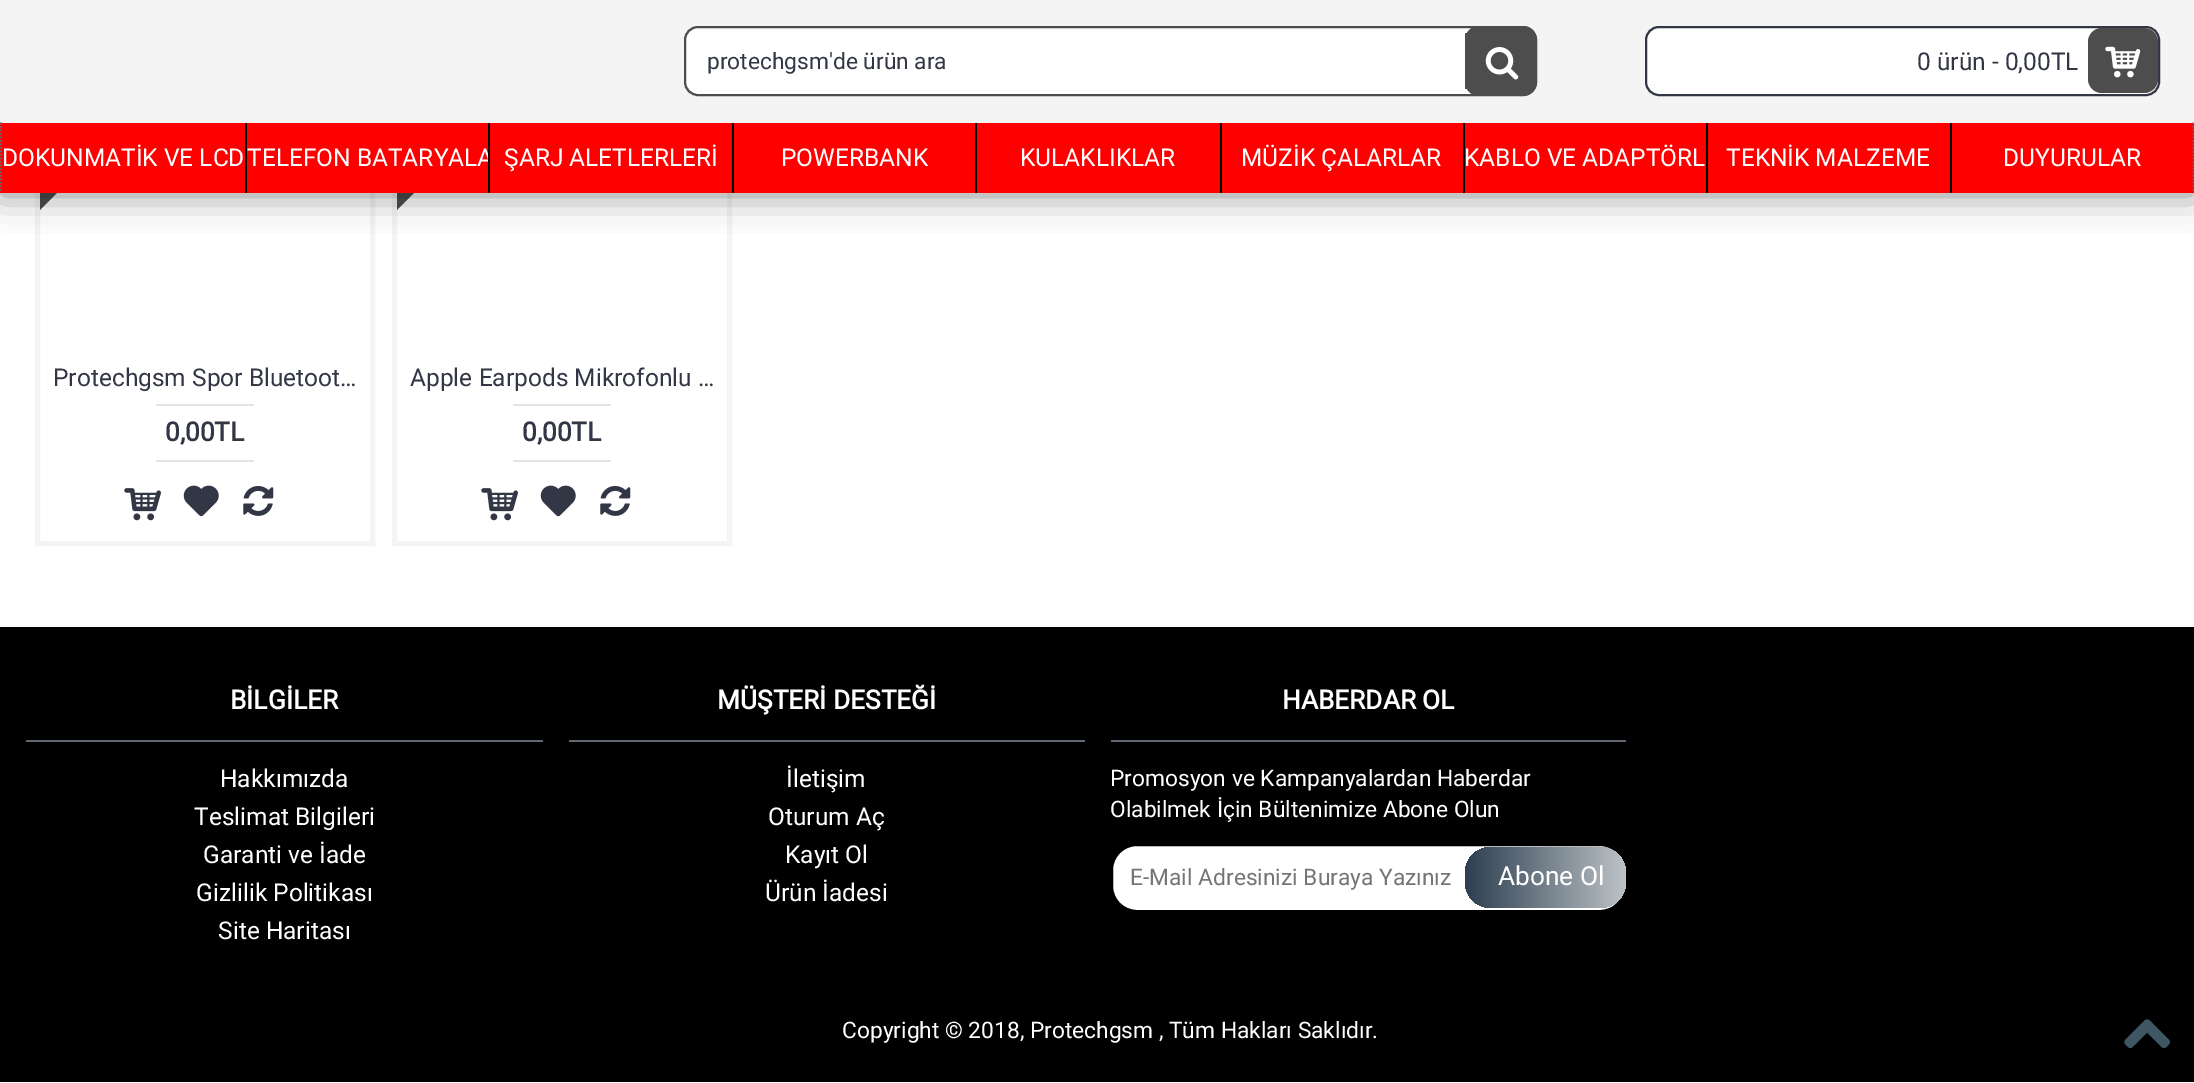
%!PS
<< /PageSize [2194 1083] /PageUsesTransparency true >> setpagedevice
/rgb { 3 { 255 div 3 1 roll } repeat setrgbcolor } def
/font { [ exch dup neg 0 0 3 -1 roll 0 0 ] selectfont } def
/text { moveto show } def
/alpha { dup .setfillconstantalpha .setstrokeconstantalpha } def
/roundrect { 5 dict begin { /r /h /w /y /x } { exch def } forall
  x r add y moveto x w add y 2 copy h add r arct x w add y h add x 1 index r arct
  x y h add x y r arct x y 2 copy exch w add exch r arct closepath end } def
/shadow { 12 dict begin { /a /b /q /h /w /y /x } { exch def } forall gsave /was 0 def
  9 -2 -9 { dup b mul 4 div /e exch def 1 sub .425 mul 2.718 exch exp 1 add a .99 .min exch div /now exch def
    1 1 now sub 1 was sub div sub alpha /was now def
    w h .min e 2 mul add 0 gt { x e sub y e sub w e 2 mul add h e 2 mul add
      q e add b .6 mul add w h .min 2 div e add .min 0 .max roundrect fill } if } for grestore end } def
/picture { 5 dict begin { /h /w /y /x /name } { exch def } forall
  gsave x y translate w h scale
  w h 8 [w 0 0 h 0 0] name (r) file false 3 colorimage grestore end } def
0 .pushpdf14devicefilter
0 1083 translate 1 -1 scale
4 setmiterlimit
255 255 255 rgb
0 0 2194 1083 rectfill
244 244 244 rgb
5 setlinewidth
37.5 16.5 335 527 rectstroke
gsave
40 19 329 329 rectclip
78 78 78 rgb
-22 210 moveto 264 -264 rlineto 31 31 rlineto -264 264 rlineto closepath fill
grestore
394.5 16.5 335 527 rectstroke
gsave
397 19 329 329 rectclip
78 78 78 rgb
335 210 moveto 264 -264 rlineto 31 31 rlineto -264 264 rlineto closepath fill
grestore
0 0 0 rgb
0 2 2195 192 0 17.5 0.45 shadow
244 244 244 rgb
0 0 2194 123 rectfill
255 255 255 rgb
685 27 851 68 13 roundrect gsave fill grestore
77 77 77 rgb
2 setlinewidth
stroke
1465 26 72 70 14 roundrect fill
1465 33 2 56 rectfill
(img_01.rgb) 1485 47 34 33 picture
255 255 255 rgb
1646 27 513 68 13 roundrect gsave fill grestore
51 55 69 rgb
stroke
77 77 77 rgb
2088 28 70 65 14 roundrect fill
(img_02.rgb) 2105 46 36 32 picture
255 0 0 rgb
0 123 2194 70 rectfill
95 104 116 rgb
1.8 setlinewidth
[1.75 1.75] 0 setdash
2193.5 122.5 moveto 0 70 rlineto stroke
1 122.5 moveto 0 70 rlineto stroke
0 0 0 rgb
245 123 2 70 rectfill
488 123 2 70 rectfill
732 123 2 70 rectfill
975 123 2 70 rectfill
1220 123 2 70 rectfill
1463 123 2 70 rectfill
1706 123 2 70 rectfill
1950 123 2 70 rectfill
228 228 228 rgb
156 404 98 2 rectfill
156 460 98 2 rectfill
(img_03.rgb) 124 488 37 33 picture
(img_04.rgb) 183 485 36 32 picture
(img_05.rgb) 243 485 31 31 picture
513 404 98 2 rectfill
513 460 98 2 rectfill
(img_03.rgb) 481 488 37 33 picture
(img_04.rgb) 540 485 36 32 picture
(img_05.rgb) 600 485 31 31 picture
0 0 0 rgb
0 627 2194 455 rectfill
95 104 116 rgb
26 740 517 2 rectfill
569 740 516 2 rectfill
1111 740 515 2 rectfill
255 255 255 rgb
1112 845 513 66 25 roundrect gsave fill grestore
0 0 0 rgb
2 setlinewidth
[] 0 setdash
stroke
gsave 1465 847 161 61 26 roundrect clip newpath
<< /ShadingType 2 /ColorSpace /DeviceRGB /Coords [1465 878 1626 878] /Extend [true true] /Function << /FunctionType 2 /Domain [0 1] /C0 [0.173 0.243 0.314] /C1 [0.741 0.765 0.78] /N 1 >> >> shfill grestore
(img_06.rgb) 2124 1019 46 30 picture
/Roboto-Regular 22.75 font
51 55 69 rgb
(protechgsm'de ürün ara) 707 69 text
/Roboto-Regular 24.5 font
(0 ürün - 0,00TL) 1917 70 text
255 255 255 rgb
(DOKUNMATİK VE LCD) 2 166 text
gsave
247 123 241 70 rectclip
(TELEFON BATARYALA) 247 166 text
grestore
(ŞARJ ALETLERLERİ) 504 166 text
(POWERBANK) 781 166 text
(KULAKLIKLAR) 1020 166 text
(MÜZİK ÇALARLAR) 1241 166 text
(KABLO VE ADAPTÖRL) 1464 166 text
(TEKNİK MALZEME) 1726 166 text
(DUYURULAR) 2003 166 text
51 55 69 rgb
(Protechgsm Spor Bluetoot…) 53 386 text
/Roboto-Bold 26.25 font
(0,00TL) 165 441 text
/Roboto-Regular 24.5 font
(Apple Earpods Mikrofonlu …) 410 386 text
/Roboto-Bold 26.25 font
(0,00TL) 522 441 text
255 255 255 rgb
(BİLGİLER) 230 709 text
/Roboto-Regular 24.5 font
(Hakkımızda) 220 787 text
(Teslimat Bilgileri) 194 825 text
(Garanti ve İade) 203 863 text
(Gizlilik Politikası) 196 901 text
(Site Haritası) 218 939 text
/Roboto-Bold 26.25 font
(MÜŞTERİ DESTEĞİ) 717 709 text
/Roboto-Regular 24.5 font
(İletişim) 786 787 text
(Oturum Aç) 768 825 text
(Kayıt Ol) 785 863 text
(Ürün İadesi) 765 901 text
/Roboto-Bold 26.25 font
(HABERDAR OL) 1282 709 text
/Roboto-Regular 22.75 font
(Promosyon ve Kampanyalardan Haberdar) 1110 786 text
(Olabilmek İçin Bültenimize Abone Olun) 1110 817 text
117 117 117 rgb
(E-Mail Adresinizi Buraya Yazınız) 1130 885 text
/Roboto-Regular 26.25 font
255 255 255 rgb
(Abone Ol) 1498 885 text
/Roboto-Regular 22.75 font
(Copyright © 2018, Protechgsm , Tüm Hakları Saklıdır.) 842 1038 text
.poppdf14devicefilter showpage
